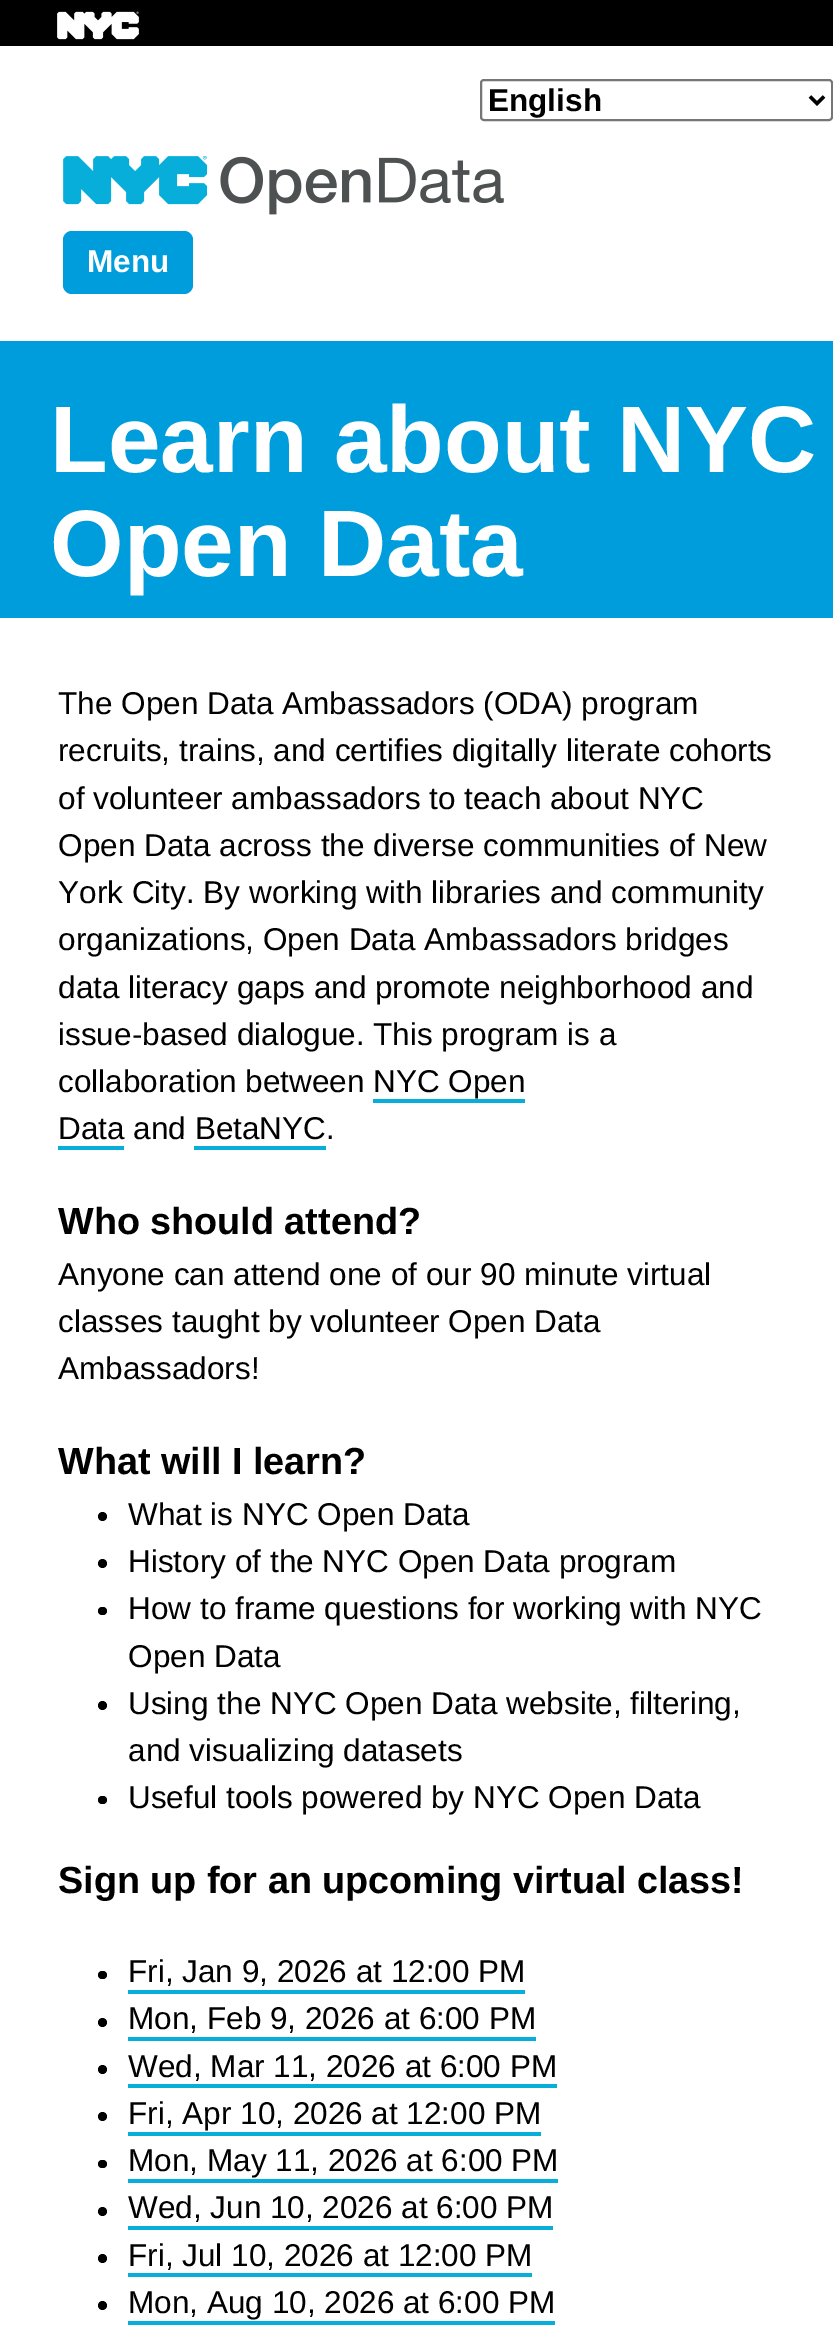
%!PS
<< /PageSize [833 2328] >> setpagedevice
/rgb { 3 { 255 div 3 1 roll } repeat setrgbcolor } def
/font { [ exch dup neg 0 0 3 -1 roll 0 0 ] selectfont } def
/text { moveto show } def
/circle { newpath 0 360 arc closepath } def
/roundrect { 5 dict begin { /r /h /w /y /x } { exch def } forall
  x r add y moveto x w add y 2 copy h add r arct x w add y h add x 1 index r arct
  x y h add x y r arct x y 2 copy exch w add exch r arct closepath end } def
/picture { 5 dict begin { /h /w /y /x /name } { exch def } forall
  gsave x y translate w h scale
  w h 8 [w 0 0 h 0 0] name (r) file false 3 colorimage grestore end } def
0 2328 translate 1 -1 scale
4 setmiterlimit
255 255 255 rgb
0 0 833 2328 rectfill
0 0 0 rgb
0 0 833 46 rectfill
(img_01.rgb) 57 11 82 29 picture
118 118 118 rgb
2 setlinewidth
481 80 351 40 3 roundrect stroke
0 0 0 rgb
3.5 setlinewidth
810 96.5 moveto 7 7 rlineto 7 -7 rlineto stroke
(img_02.rgb) 63 156 441 59 picture
0 157 220 rgb
63 231 130 63 9 roundrect fill
0 341 833 277 rectfill
7 174 218 rgb
373 1099 152 4 rectfill
58 1146 66 4 rectfill
194 1146 132 4 rectfill
0 0 0 rgb
102.5 1516.5 4.5 circle fill
102.5 1563.5 4.5 circle fill
98 1607 9 8 4 roundrect fill
102.5 1705.5 4.5 circle fill
98 1796 9 8 4 roundrect fill
98 1971 9 8 4 roundrect fill
7 174 218 rgb
128 1990 397 4 rectfill
0 0 0 rgb
102.5 2022.5 4.5 circle fill
7 174 218 rgb
128 2037 408 4 rectfill
0 0 0 rgb
102.5 2069.5 4.5 circle fill
7 174 218 rgb
128 2084 429 4 rectfill
0 0 0 rgb
102.5 2116.5 4.5 circle fill
7 174 218 rgb
128 2132 413 4 rectfill
0 0 0 rgb
98 2160 9 8 4 roundrect fill
7 174 218 rgb
128 2179 430 4 rectfill
0 0 0 rgb
102.5 2211.5 4.5 circle fill
7 174 218 rgb
128 2226 425 4 rectfill
0 0 0 rgb
102.5 2258.5 4.5 circle fill
7 174 218 rgb
128 2273 404 4 rectfill
0 0 0 rgb
102.5 2305.5 4.5 circle fill
7 174 218 rgb
128 2321 427 4 rectfill
/LiberationSans-Bold 31.5 font
0 0 0 rgb
(English) 488 111 text
255 255 255 rgb
(Menu) 87 272 text
/LiberationSans-Bold 94.5 font
(Learn about NYC) 50 472 text
(Open Data) 50 576 text
/LiberationSans-Regular 31.5 font
0 0 0 rgb
(The Open Data Ambassadors \(ODA\) program) 58 714 text
(recruits, trains, and certifies digitally literate cohorts) 58 761 text
(of volunteer ambassadors to teach about NYC) 58 809 text
(Open Data across the diverse communities of New) 58 856 text
(York City. By working with libraries and community) 58 903 text
(organizations, Open Data Ambassadors bridges) 58 950 text
(data literacy gaps and promote neighborhood and) 58 998 text
(issue-based dialogue. This program is a) 58 1045 text
(collaboration between NYC Open) 58 1092 text
(Data and BetaNYC.) 58 1139 text
/LiberationSans-Bold 37.75 font
(Who should attend?) 58 1234 text
/LiberationSans-Regular 31.5 font
(Anyone can attend one of our 90 minute virtual) 58 1285 text
(classes taught by volunteer Open Data) 58 1332 text
(Ambassadors!) 58 1379 text
/LiberationSans-Bold 37.75 font
(What will I learn?) 58 1474 text
/LiberationSans-Regular 31.5 font
(What is NYC Open Data) 128 1525 text
(History of the NYC Open Data program) 128 1572 text
(How to frame questions for working with NYC) 128 1619 text
(Open Data) 128 1667 text
(Using the NYC Open Data website, filtering,) 128 1714 text
(and visualizing datasets) 128 1761 text
(Useful tools powered by NYC Open Data) 128 1808 text
/LiberationSans-Bold 37.75 font
(Sign up for an upcoming virtual class!) 58 1893 text
/LiberationSans-Regular 31.5 font
(Fri, Jan 9, 2026 at 12:00 PM) 128 1982 text
(Mon, Feb 9, 2026 at 6:00 PM) 128 2029 text
(Wed, Mar 11, 2026 at 6:00 PM) 128 2077 text
(Fri, Apr 10, 2026 at 12:00 PM) 128 2124 text
(Mon, May 11, 2026 at 6:00 PM) 128 2171 text
(Wed, Jun 10, 2026 at 6:00 PM) 128 2218 text
(Fri, Jul 10, 2026 at 12:00 PM) 128 2266 text
(Mon, Aug 10, 2026 at 6:00 PM) 128 2313 text
showpage
